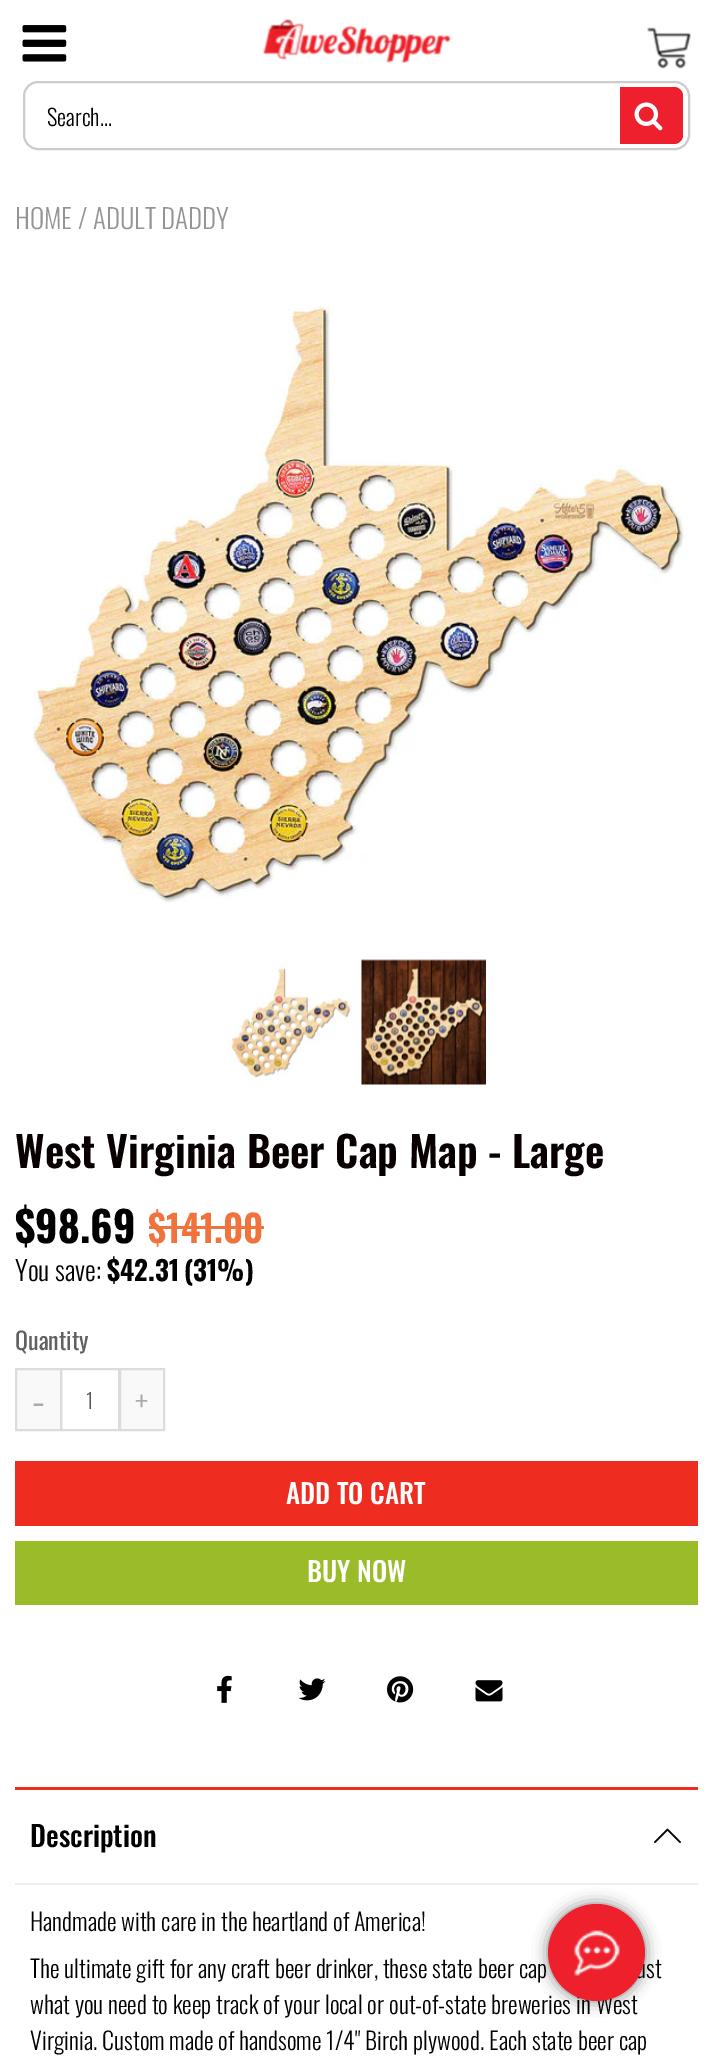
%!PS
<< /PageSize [712 2060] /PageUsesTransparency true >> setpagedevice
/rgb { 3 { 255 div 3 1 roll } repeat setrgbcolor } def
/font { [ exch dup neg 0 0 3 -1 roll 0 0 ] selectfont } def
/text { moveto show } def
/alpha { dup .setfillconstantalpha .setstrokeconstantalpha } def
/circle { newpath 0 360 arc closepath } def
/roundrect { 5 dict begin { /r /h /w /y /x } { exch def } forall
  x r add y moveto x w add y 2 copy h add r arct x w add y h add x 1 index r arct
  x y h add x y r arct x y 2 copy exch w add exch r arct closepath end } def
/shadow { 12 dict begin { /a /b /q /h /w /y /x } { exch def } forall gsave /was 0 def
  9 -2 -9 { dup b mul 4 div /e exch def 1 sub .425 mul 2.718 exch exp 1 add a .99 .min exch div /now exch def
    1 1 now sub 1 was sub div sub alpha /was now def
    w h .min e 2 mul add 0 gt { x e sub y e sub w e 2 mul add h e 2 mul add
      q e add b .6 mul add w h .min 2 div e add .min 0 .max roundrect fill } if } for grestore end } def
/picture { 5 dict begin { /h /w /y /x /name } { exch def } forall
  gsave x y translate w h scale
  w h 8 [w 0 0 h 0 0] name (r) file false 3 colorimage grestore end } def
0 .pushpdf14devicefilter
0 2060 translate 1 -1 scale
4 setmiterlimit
255 255 255 rgb
0 0 712 2060 rectfill
(img_01.rgb) 22 25 45 37 picture
(img_02.rgb) 262 18 189 46 picture
(img_03.rgb) 647 27 44 42 picture
204 204 204 rgb
2 setlinewidth
24 82 665 67 14 roundrect stroke
238 32 46 rgb
620 87 moveto 54 0 rlineto 5 0 9 4 9 9 rcurveto 0 39 rlineto 0 5 -4 9 -9 9 rcurveto -54 0 rlineto closepath fill
(img_04.rgb) 634 102 29 29 picture
(img_05.rgb) 33 306 656 600 picture
(img_06.rgb) 228 967 124 111 picture
(img_07.rgb) 361 959 125 126 picture
240 114 61 rgb
149 1226 115 3 rectfill
249 249 249 rgb
16 1369 moveto 45 0 rlineto 0 61 rlineto -45 0 rlineto closepath gsave fill grestore
221 220 220 rgb
stroke
249 249 249 rgb
120 1369 moveto 44 0 rlineto 0 61 rlineto -44 0 rlineto closepath gsave fill grestore
221 220 220 rgb
stroke
61 1369 58 61 rectstroke
238 44 32 rgb
15 1461 683 65 rectfill
154 188 40 rgb
15 1541 683 64 rectfill
(img_08.rgb) 217 1675 15 28 picture
(img_09.rgb) 298 1678 28 23 picture
(img_10.rgb) 387 1676 27 27 picture
(img_11.rgb) 475 1680 28 22 picture
238 238 238 rgb
15 1883 683 2 rectfill
238 44 32 rgb
15 1787 683 3 rectfill
(img_12.rgb) 654 1828 27 15 picture
0 0 0 rgb
548 1904 97 97 48.5 7.5 0.5 shadow
/Oswald-Light 22.5 font
(Search...) 47 126 text
/Oswald-Light 27 font
148 148 148 rgb
(HOME) 15 229 text
(/ ADULT DADDY) 78 229 text
/Oswald-SemiBold 42 font
8 0 0 rgb
(West Virginia Beer Cap Map - Large) 15 1168 text
/Oswald-Bold 42 font
0 0 0 rgb
($98.69) 15 1243 text
/Oswald-SemiBold 37.5 font
240 114 61 rgb
($141.00) 148 1243 text
/Oswald-Light 27 font
0 0 0 rgb
(You save:) 15 1281 text
/Oswald-Bold 27 font
($42.31) 107 1281 text
(\(31%\)) 184 1281 text
/Oswald-Regular 24 font
96 96 96 rgb
(Quantity) 15 1350 text
/Oswald-Light 45 font
170 170 170 rgb
(-) 32 1417 text
/Oswald-Light 21 font
85 85 85 rgb
(1) 86 1409 text
/Oswald-Light 34 font
170 170 170 rgb
(+) 135 1415 text
/Oswald-Medium 27 font
255 255 255 rgb
(ADD TO CART) 286 1504 text
(BUY NOW) 307 1582 text
/Oswald-Medium 28.5 font
0 0 0 rgb
(Description) 30 1847 text
/Oswald-Light 24 font
(Handmade with care in the heartland of America!) 30 1931 text
(The ultimate gift for any craft beer drinker, these state beer cap) 30 1978 text
(ust) 636 1978 text
(what you need to keep track of your local or out-of-state breweries in West) 30 2014 text
(Virginia. Custom made of handsome 1/4" Birch plywood. Each state beer cap) 30 2050 text
238 32 44 rgb
596.5 1952.5 48.5 circle fill
(img_13.rgb) 574 1930 46 46 picture
.poppdf14devicefilter showpage
